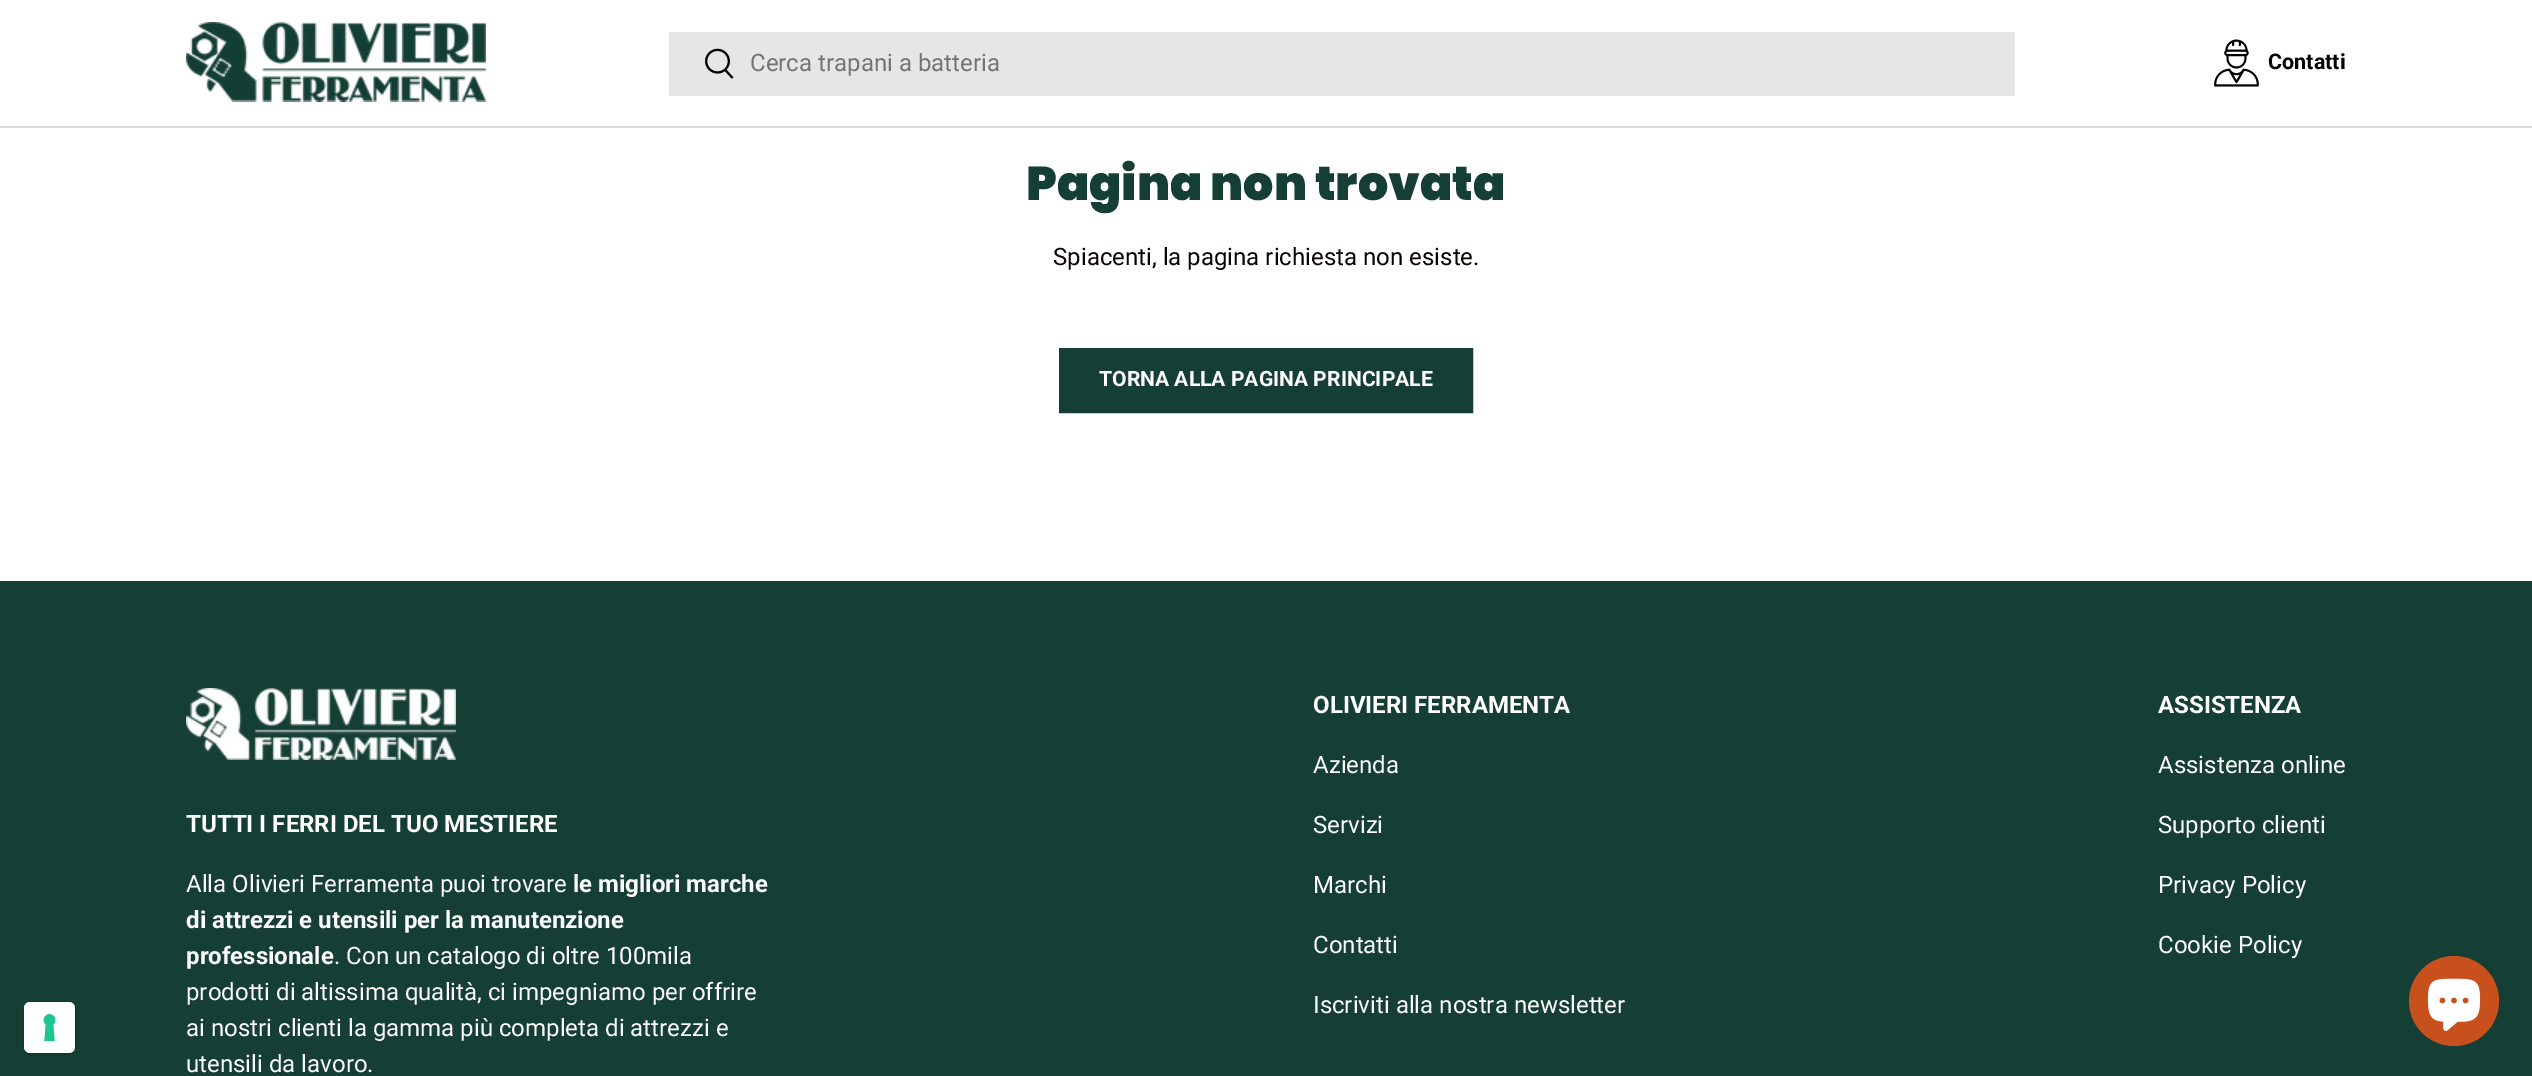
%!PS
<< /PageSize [2532 1076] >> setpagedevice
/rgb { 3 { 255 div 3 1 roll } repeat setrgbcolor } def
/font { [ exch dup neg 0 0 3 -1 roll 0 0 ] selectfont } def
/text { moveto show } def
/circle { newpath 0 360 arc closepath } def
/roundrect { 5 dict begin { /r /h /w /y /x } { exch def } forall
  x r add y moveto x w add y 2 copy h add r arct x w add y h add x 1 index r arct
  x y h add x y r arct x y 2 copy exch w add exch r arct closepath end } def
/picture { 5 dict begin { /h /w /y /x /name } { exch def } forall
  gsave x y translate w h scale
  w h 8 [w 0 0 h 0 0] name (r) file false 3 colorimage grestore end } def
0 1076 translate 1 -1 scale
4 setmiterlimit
255 255 255 rgb
0 0 2532 1076 rectfill
217 217 217 rgb
0 126 2532 2 rectfill
(img_01.rgb) 186 22 300 80 picture
230 230 230 rgb
669 32 1346 64 1.5 roundrect fill
(img_02.rgb) 705 48 29 31 picture
(img_03.rgb) 2214 39 45 48 picture
gsave 1061 350 moveto 410 0 rlineto 0 61 rlineto -410 0 rlineto closepath clip newpath
<< /ShadingType 2 /ColorSpace /DeviceRGB /Coords [267 234 1443 527] /Extend [true true] /Function << /FunctionType 3 /Domain [0 1] /Functions [<< /FunctionType 2 /Domain [0 1] /C0 [0.243 0.392 0.361] /C1 [0.243 0.392 0.361] /N 1 >> << /FunctionType 2 /Domain [0 1] /C0 [0.082 0.243 0.208] /C1 [0.082 0.243 0.208] /N 1 >>] /Bounds [0.6] /Encode [0 1 0 1] >> >> shfill grestore
21 62 53 rgb
2 setlinewidth
1060 349 412 63 rectstroke
0 581 2532 495 rectfill
18 53 45 rgb
24 1002 52 52 7 roundrect stroke
255 255 255 rgb
24 1002 51 51 6 roundrect fill
(img_04.rgb) 43 1014 13 27 picture
(img_05.rgb) 186 688 270 72 picture
200 80 29 rgb
2454 1001 45 circle fill
(img_06.rgb) 2427 978 54 53 picture
/Roboto-Regular 24 font
115 115 115 rgb
(Cerca trapani a batteria) 750 71 text
/Roboto-Bold 21.5 font
0 0 0 rgb
(Contatti) 2268 69 text
/Poppins-Black 47.5 font
21 62 53 rgb
(Pagina non trovata) 1026 200 text
/Roboto-Regular 24 font
9 3 2 rgb
(Spiacenti, la pagina richiesta non esiste.) 1053 265 text
/Roboto-Bold 21.1 font
255 255 255 rgb
(TORNA ALLA PAGINA PRINCIPALE) 1099 386 text
/Roboto-Bold 24 font
(TUTTI I FERRI DEL TUO MESTIERE) 186 832 text
/Roboto-Regular 24 font
(Alla Olivieri Ferramenta puoi trovare) 186 892 text
/Roboto-Bold 24 font
(le migliori marche) 573 892 text
(di attrezzi e utensili per la manutenzione) 186 928 text
(professionale) 186 964 text
/Roboto-Regular 24 font
(. Con un catalogo di oltre 100mila) 334 964 text
(prodotti di altissima qualità, ci impegniamo per offrire) 186 1000 text
(ai nostri clienti la gamma più completa di attrezzi e) 186 1036 text
(utensili da lavoro.) 186 1072 text
/Roboto-Bold 24 font
(OLIVIERI FERRAMENTA) 1313 713 text
/Roboto-Regular 24 font
(Azienda) 1313 773 text
(Servizi) 1313 833 text
(Marchi) 1313 893 text
(Contatti) 1313 953 text
(Iscriviti alla nostra newsletter) 1313 1013 text
/Roboto-Bold 24 font
(ASSISTENZA) 2158 713 text
/Roboto-Regular 24 font
(Assistenza online) 2158 773 text
(Supporto clienti) 2158 833 text
(Privacy Policy) 2158 893 text
(Cookie Policy) 2158 953 text
showpage
